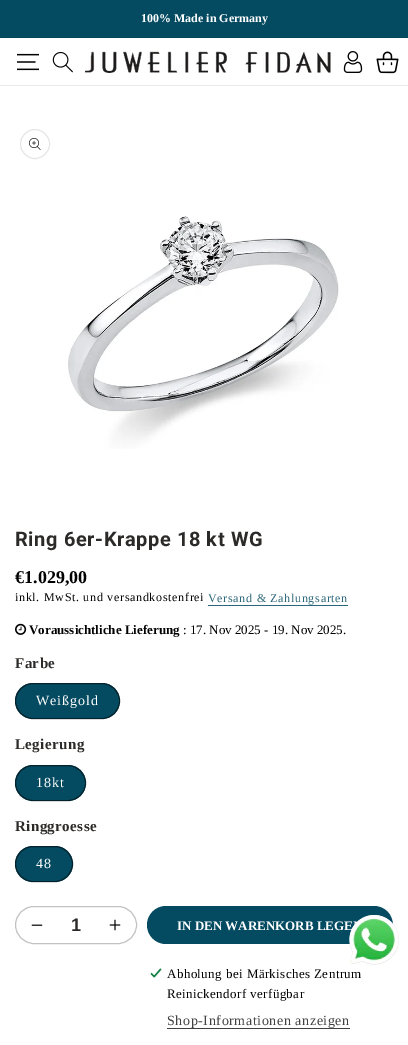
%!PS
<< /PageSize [408 1045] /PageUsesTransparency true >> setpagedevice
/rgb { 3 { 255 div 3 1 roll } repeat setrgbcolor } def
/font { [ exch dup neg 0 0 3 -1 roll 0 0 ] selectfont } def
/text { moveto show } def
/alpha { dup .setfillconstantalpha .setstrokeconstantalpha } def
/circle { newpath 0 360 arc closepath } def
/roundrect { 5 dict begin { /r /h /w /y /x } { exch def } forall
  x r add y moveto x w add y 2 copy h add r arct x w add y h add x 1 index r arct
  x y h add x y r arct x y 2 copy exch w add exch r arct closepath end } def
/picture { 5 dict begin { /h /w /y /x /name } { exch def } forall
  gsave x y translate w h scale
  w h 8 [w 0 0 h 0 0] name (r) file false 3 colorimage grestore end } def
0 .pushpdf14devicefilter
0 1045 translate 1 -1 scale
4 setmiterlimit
255 255 255 rgb
0 0 408 1045 rectfill
4 75 97 rgb
0 0 408 37 rectfill
4 69 89 rgb
0 37 408 1 rectfill
235 235 235 rgb
0 85 408 1 rectfill
(img_01.rgb) 17 53 22 18 picture
(img_02.rgb) 52 51 21 22 picture
(img_03.rgb) 85 51 246 22 picture
(img_04.rgb) 343 51 20 22 picture
(img_05.rgb) 376 51 23 23 picture
230 230 230 rgb
35 144 14.5 circle stroke
(img_06.rgb) 29 138 12 12 picture
(img_07.rgb) 68 216 271 233 picture
42 102 121 rgb
208 605 140 1 rectfill
(img_08.rgb) 15 623 12 12 picture
4 75 97 rgb
15 683 105 36 18 roundrect fill
0.55 alpha
0 0 0 rgb
15.5 683.5 104 35 17.5 roundrect stroke
1 alpha
4 75 97 rgb
15 765 71 36 18 roundrect fill
0.55 alpha
0 0 0 rgb
15.5 765.5 70 35 17.5 roundrect stroke
1 alpha
4 75 97 rgb
15 846 58 36 18 roundrect fill
0.55 alpha
0 0 0 rgb
15.5 846.5 57 35 17.5 roundrect stroke
1 alpha
195 195 195 rgb
15.5 906.5 121 37 18.5 roundrect stroke
(img_09.rgb) 31 924 12 2 picture
(img_10.rgb) 109 919 12 12 picture
4 75 97 rgb
147 906 246 38 19 roundrect fill
(img_11.rgb) 150 968 12 10 picture
64 64 64 rgb
167 1028 183 1 rectfill
/LiberationSerif-Bold 12 font
255 255 255 rgb
(100% Made in Germany) 141 22 text
/Roboto-Bold 20 font
43 42 40 rgb
15 546 moveto 0.6 0 (Ring 6er-Krappe 18 kt WG) ashow
/LiberationSerif-Bold 18 font
0 0 0 rgb
(€1.029,00) 15 583 text
/LiberationSerif-Regular 12 font
15 601 moveto 0.7 0 (inkl. MwSt. und versandkostenfrei) ashow
42 102 121 rgb
208 602 moveto 0.7 0 (Versand & Zahlungsarten) ashow
/LiberationSerif-Bold 13 font
0 0 0 rgb
(Voraussichtliche Lieferung) 29 634 text
/LiberationSerif-Regular 13 font
(: 17. Nov 2025 - 19. Nov 2025.) 183 634 text
/LiberationSerif-Bold 15 font
43 42 40 rgb
15 668 moveto 0.4 0 (Farbe) ashow
/LiberationSerif-Regular 14 font
255 255 255 rgb
36 705 moveto 1 0 (Weißgold) ashow
/LiberationSerif-Bold 15 font
43 42 40 rgb
15 749 moveto 0.4 0 (Legierung) ashow
/LiberationSerif-Regular 14 font
255 255 255 rgb
36 787 moveto 1 0 (18kt) ashow
/LiberationSerif-Bold 15 font
43 42 40 rgb
15 831 moveto 0.4 0 (Ringgroesse) ashow
/LiberationSerif-Regular 14 font
255 255 255 rgb
36 868 moveto 1 0 (48) ashow
/LiberationSans-Bold 18 font
43 42 40 rgb
(1) 71 931 text
/LiberationSerif-Bold 13 font
255 255 255 rgb
(IN DEN WARENKORB LEGE) 177 930 text
/LiberationSerif-Regular 13 font
0 0 0 rgb
167 978 moveto 0.4 0 (Abholung bei Märkisches Zentrum) ashow
167 998 moveto 0.4 0 (Reinickendorf verfügbar) ashow
/LiberationSerif-Regular 14 font
64 64 64 rgb
167 1025 moveto 0.6 0 (Shop-Informationen anzeigen) ashow
(img_12.rgb) 349 915 50 50 picture
.poppdf14devicefilter showpage
